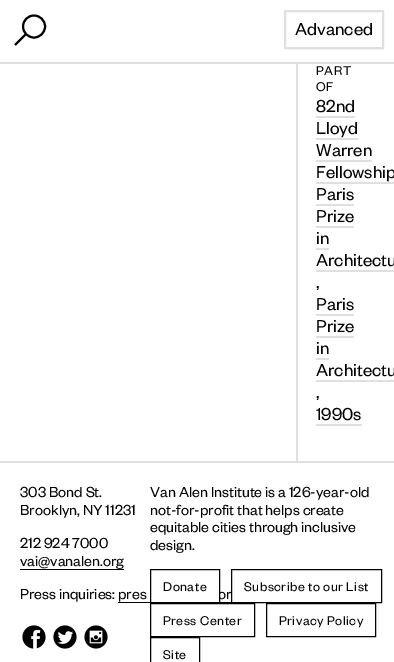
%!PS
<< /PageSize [394 662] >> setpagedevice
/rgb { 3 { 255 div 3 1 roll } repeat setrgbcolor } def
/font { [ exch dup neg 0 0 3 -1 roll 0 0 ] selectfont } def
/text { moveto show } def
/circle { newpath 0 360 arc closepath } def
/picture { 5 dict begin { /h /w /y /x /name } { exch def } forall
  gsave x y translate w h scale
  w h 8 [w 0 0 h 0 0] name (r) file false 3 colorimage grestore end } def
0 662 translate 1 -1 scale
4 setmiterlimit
255 255 255 rgb
0 0 394 662 rectfill
224 224 224 rgb
0 62 394 2 rectfill
0 0 0 rgb
2 setlinewidth
34 26.5 11 circle stroke
26 34 moveto -11 11 rlineto stroke
224 224 224 rgb
285 11 98 37 rectstroke
296 64 2 398 rectfill
316 116 39 2 rectfill
316 138 42 2 rectfill
316 160 56 2 rectfill
316 182 78 2 rectfill
316 204 38 2 rectfill
316 226 38 2 rectfill
316 248 13 2 rectfill
316 270 78 2 rectfill
316 314 38 2 rectfill
316 336 38 2 rectfill
316 358 13 2 rectfill
316 380 78 2 rectfill
316 424 46 2 rectfill
0 461 394 2 rectfill
0 0 0 rgb
20 569 104 1 rectfill
118 602 121 1 rectfill
1 setlinewidth
231.5 569.5 150 33 rectstroke
150.5 603.5 104 33 rectstroke
266.5 603.5 109 33 rectstroke
150.5 637.5 49 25 rectstroke
(img_01.rgb) 22 625 24 24 picture
(img_02.rgb) 53 625 24 24 picture
(img_03.rgb) 84 625 24 24 picture
/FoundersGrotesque-Regular 19 font
(Advanced) 295 35 text
/FoundersGrotesque-Regular 14 font
316 75 moveto 0.5 0 (PART) ashow
316 91 moveto 0.5 0 (OF) ashow
/FoundersGrotesque-Regular 19 font
(82nd) 316 112 text
(Lloyd) 316 134 text
(Warren) 316 156 text
(Fellowship) 316 178 text
(Paris) 316 200 text
(Prize) 316 222 text
(in) 316 244 text
(Architectu) 316 266 text
(,) 316 288 text
(Paris) 316 310 text
(Prize) 316 332 text
(in) 316 354 text
(Architectu) 316 376 text
(,) 316 398 text
(1990s) 316 420 text
/FoundersGrotesque-Regular 16 font
(303 Bond St.) 20 497 text
(Brooklyn, NY 11231) 20 515 text
(212 924 7000) 20 548 text
(vai@vanalen.org) 20 566 text
(Press inquiries: pres) 20 599 text
(or) 218 599 text
(Van Alen Institute is a 126-year-old) 150 497 text
(not-for-profit that helps create) 150 515 text
(equitable cities through inclusive) 150 532 text
(design.) 150 550 text
255 255 255 rgb
218 594 1 3 rectfill
0 0 0 rgb
150.5 569.5 69 33 rectstroke
/FoundersGrotesque-Regular 14 font
163 591 moveto 0.5 0 (Donate) ashow
244 591 moveto 0.5 0 (Subscribe to our List) ashow
163 625 moveto 0.5 0 (Press Center) ashow
279 625 moveto 0.5 0 (Privacy Policy) ashow
163 659 moveto 0.5 0 (Site) ashow
showpage
